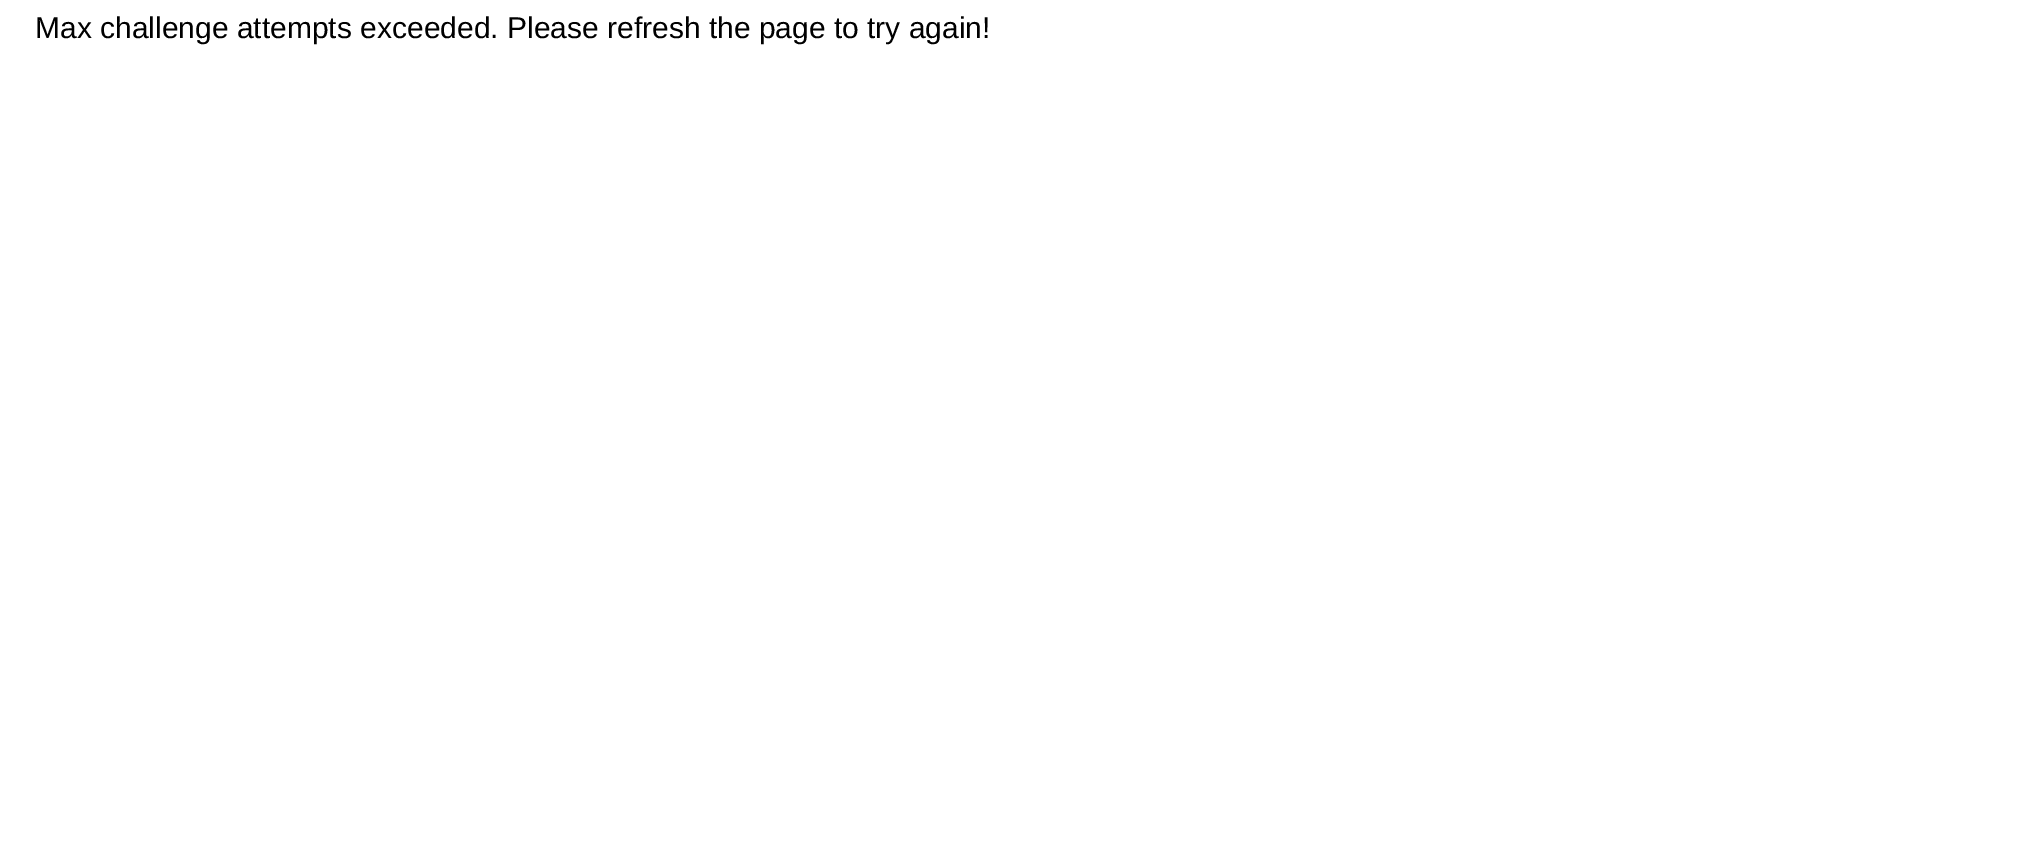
%!PS
<< /PageSize [2022 851] >> setpagedevice
/rgb { 3 { 255 div 3 1 roll } repeat setrgbcolor } def
/font { [ exch dup neg 0 0 3 -1 roll 0 0 ] selectfont } def
/text { moveto show } def
0 851 translate 1 -1 scale
4 setmiterlimit
255 255 255 rgb
0 0 2022 851 rectfill
/LiberationSans-Regular 30 font
0 0 0 rgb
(Max challenge attempts exceeded. Please refresh the page to try again!) 35 38 text
showpage
